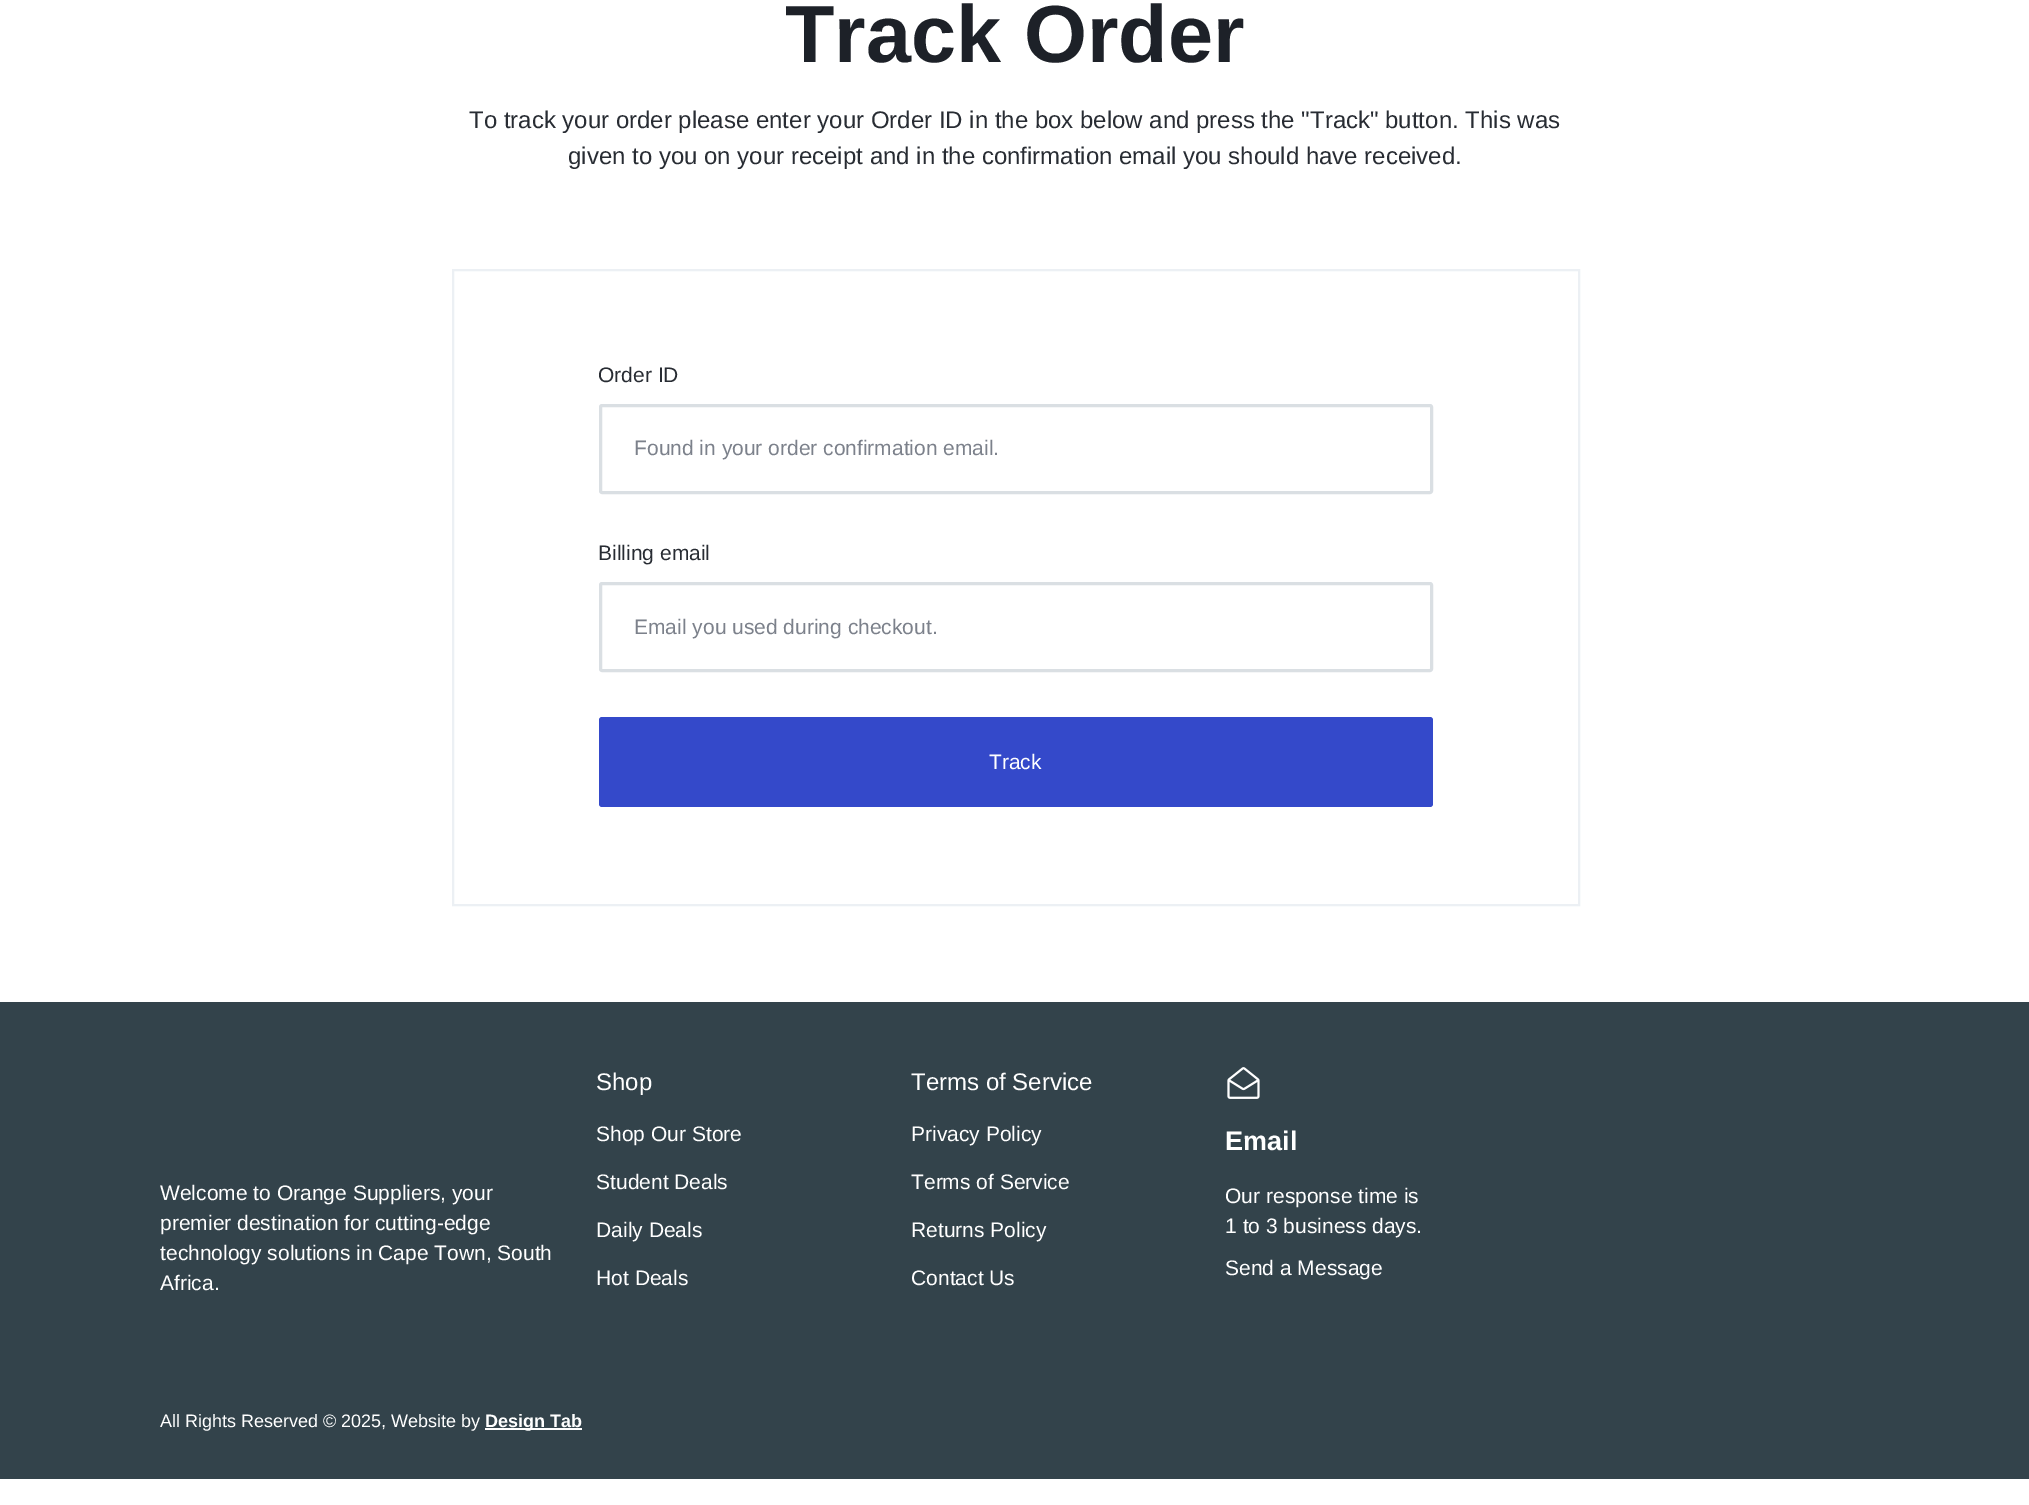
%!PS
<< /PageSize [2029 1505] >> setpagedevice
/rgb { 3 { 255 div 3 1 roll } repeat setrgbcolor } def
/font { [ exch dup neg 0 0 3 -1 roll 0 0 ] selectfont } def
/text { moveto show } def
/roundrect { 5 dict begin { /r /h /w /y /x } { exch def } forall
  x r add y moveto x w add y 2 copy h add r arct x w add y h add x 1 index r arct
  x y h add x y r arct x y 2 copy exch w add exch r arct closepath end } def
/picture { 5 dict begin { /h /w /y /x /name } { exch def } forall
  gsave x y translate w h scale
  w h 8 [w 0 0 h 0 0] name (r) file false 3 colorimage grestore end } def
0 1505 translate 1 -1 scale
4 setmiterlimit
255 255 255 rgb
0 0 2029 1505 rectfill
236 240 244 rgb
2 setlinewidth
453 270 1126 635 rectstroke
218 223 227 rgb
3 setlinewidth
600.5 405.5 831 87 1.5 roundrect stroke
600.5 583.5 831 87 1.5 roundrect stroke
52 73 202 rgb
599 717 834 90 3 roundrect fill
51 67 75 rgb
0 1002 2029 477 rectfill
(img_01.rgb) 1227 1067 33 32 picture
255 255 255 rgb
485 1428 97 2 rectfill
/LiberationSans-Bold 81 font
29 33 40 rgb
(Track Order) 785 62 text
/LiberationSans-Regular 24 font
40 44 51 rgb
(To track your order please enter your Order ID in the box below and press the "Track" button. This was) 469 128 text
(given to you on your receipt and in the confirmation email you should have received.) 568 164 text
/LiberationSans-Regular 21 font
(Order ID) 598 382 text
124 129 139 rgb
(Found in your order confirmation email.) 634 455 text
40 44 51 rgb
(Billing email) 598 560 text
124 129 139 rgb
(Email you used during checkout.) 634 634 text
255 255 255 rgb
(Track) 989 769 text
(Welcome to Orange Suppliers, your) 160 1200 text
(premier destination for cutting-edge) 160 1230 text
(technology solutions in Cape Town, South) 160 1260 text
(Africa.) 160 1290 text
/LiberationSans-Regular 24 font
(Shop) 596 1090 text
/LiberationSans-Regular 21 font
(Shop Our Store) 596 1141 text
(Student Deals) 596 1189 text
(Daily Deals) 596 1237 text
(Hot Deals) 596 1285 text
/LiberationSans-Regular 24 font
(Terms of Service) 911 1090 text
/LiberationSans-Regular 21 font
(Privacy Policy) 911 1141 text
(Terms of Service) 911 1189 text
(Returns Policy) 911 1237 text
(Contact Us) 911 1285 text
/LiberationSans-Bold 27 font
(Email) 1225 1150 text
/LiberationSans-Regular 21 font
(Our response time is) 1225 1203 text
(1 to 3 business days.) 1225 1233 text
(Send a Message) 1225 1275 text
/LiberationSans-Regular 18 font
(All Rights Reserved © 2025, Website by) 160 1427 text
/LiberationSans-Bold 18 font
(Design Tab) 485 1427 text
showpage
